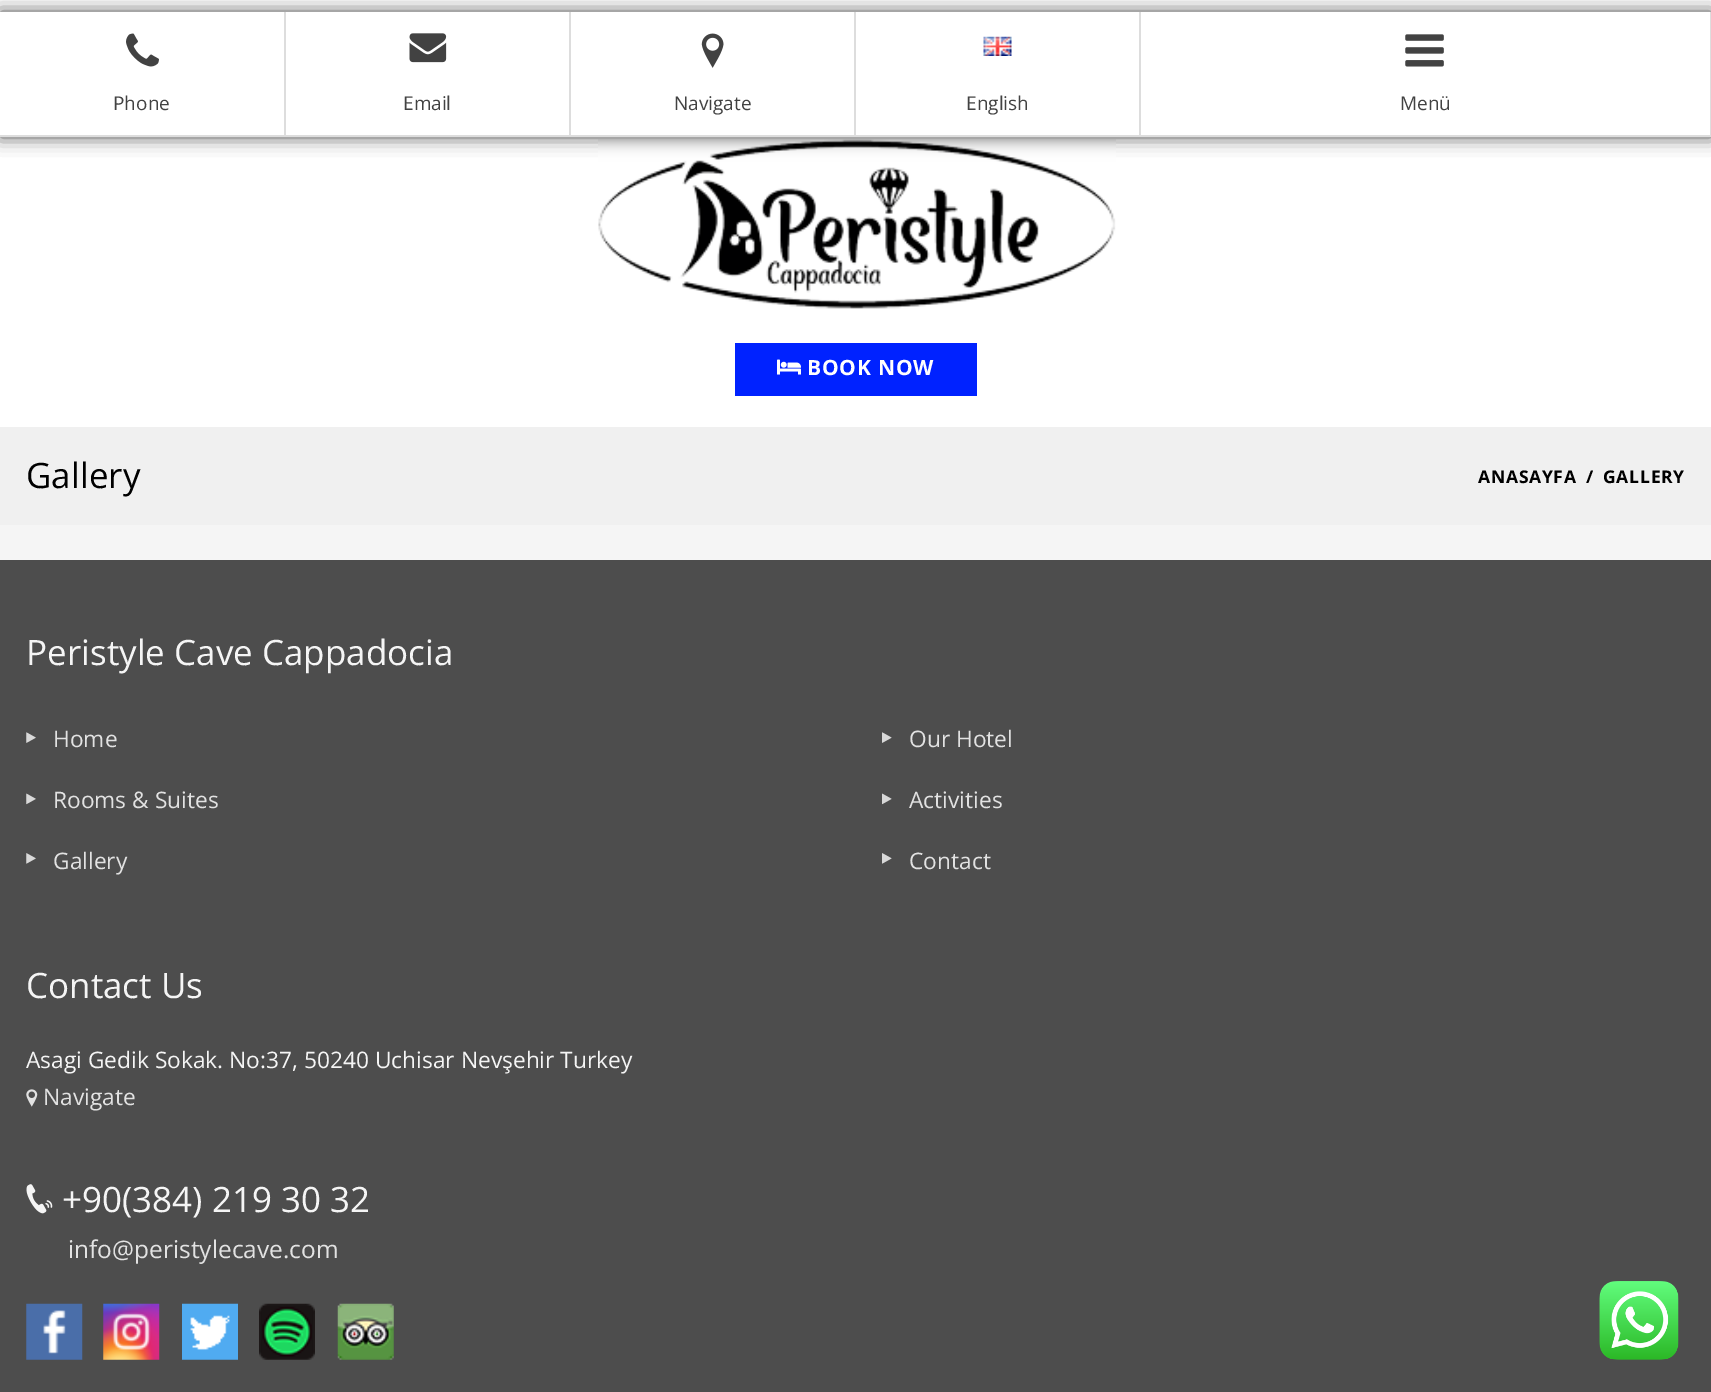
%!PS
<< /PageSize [1711 1392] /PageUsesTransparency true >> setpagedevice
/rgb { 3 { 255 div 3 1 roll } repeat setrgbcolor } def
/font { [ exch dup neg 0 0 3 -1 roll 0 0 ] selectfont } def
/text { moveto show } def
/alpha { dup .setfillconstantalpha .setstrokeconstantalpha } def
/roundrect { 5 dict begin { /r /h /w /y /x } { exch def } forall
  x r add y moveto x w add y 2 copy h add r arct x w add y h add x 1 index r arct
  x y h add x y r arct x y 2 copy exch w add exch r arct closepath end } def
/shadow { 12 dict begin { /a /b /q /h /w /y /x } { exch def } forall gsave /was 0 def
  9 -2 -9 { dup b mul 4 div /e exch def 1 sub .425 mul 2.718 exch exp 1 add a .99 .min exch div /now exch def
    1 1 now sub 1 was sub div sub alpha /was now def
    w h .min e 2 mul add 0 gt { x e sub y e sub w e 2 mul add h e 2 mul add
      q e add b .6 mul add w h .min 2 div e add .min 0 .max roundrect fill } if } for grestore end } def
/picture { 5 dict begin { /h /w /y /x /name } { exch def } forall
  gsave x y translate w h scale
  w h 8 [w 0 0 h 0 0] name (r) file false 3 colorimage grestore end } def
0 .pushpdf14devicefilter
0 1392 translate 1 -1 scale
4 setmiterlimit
255 255 255 rgb
0 0 1711 1392 rectfill
gsave
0 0 moveto 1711 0 rlineto 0 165 rlineto -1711 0 rlineto closepath 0 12 moveto 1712 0 rlineto 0 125 rlineto -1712 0 rlineto closepath eoclip newpath
0 0 0 rgb
0 12 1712 125 0 9 0.7 shadow
grestore
221 221 221 rgb
284 12 2 125 rectfill
0 135 285 2 rectfill
(img_01.rgb) 126 33 33 34 picture
569 12 2 125 rectfill
285 135 286 2 rectfill
(img_02.rgb) 409 33 38 30 picture
854 12 2 125 rectfill
571 135 285 2 rectfill
(img_03.rgb) 701 33 23 35 picture
1139 12 2 125 rectfill
856 135 285 2 rectfill
(img_04.rgb) 983 36 29 20 picture
1710 12 1 125 rectfill
1141 135 570 2 rectfill
(img_05.rgb) 1405 34 39 33 picture
(img_06.rgb) 598 139 518 170 picture
0 34 255 rgb
735 343 242 53 rectfill
(img_07.rgb) 777 359 24 16 picture
240 240 240 rgb
0 427 1711 98 rectfill
245 245 245 rgb
0 525 1711 35 rectfill
77 77 77 rgb
0 560 1711 832 rectfill
(img_08.rgb) 26 732 10 11 picture
(img_09.rgb) 882 732 10 11 picture
(img_10.rgb) 26 793 10 12 picture
(img_11.rgb) 882 793 10 12 picture
(img_12.rgb) 26 853 10 11 picture
(img_13.rgb) 882 853 10 11 picture
(img_14.rgb) 26 1089 12 18 picture
(img_15.rgb) 26 1184 27 30 picture
(img_16.rgb) 26 1303 57 57 picture
(img_17.rgb) 103 1303 57 57 picture
(img_18.rgb) 182 1303 56 57 picture
(img_19.rgb) 259 1303 56 57 picture
(img_20.rgb) 337 1303 57 57 picture
(img_21.rgb) 1599 1281 80 79 picture
/OpenSans-Regular 19 font
66 66 66 rgb
(Phone) 113 110 text
(Email) 403 110 text
(Navigate) 674 110 text
(English) 966 110 text
(Menü) 1400 110 text
/OpenSans-Bold 21 font
255 255 255 rgb
807 375 moveto 0.75 0 (BOOK NOW) ashow
/OpenSans-Regular 35 font
0 0 0 rgb
(Gallery) 26 488 text
/OpenSans-Bold 17.5 font
1478 483 moveto 0.75 0 (ANASAYFA) ashow
1586 483 moveto 0.75 0 (/) ashow
1603 483 moveto 0.75 0 (GALLERY) ashow
/OpenSans-Regular 35 font
245 245 245 rgb
(Peristyle Cave Cappadocia) 26 665 text
/OpenSans-Regular 22.75 font
226 226 226 rgb
(Home) 53 747 text
(Our Hotel) 909 747 text
(Rooms & Suites) 53 808 text
(Activities) 909 808 text
(Gallery) 53 869 text
(Contact) 909 869 text
/OpenSans-Regular 35 font
245 245 245 rgb
(Contact Us) 26 998 text
/OpenSans-Regular 22.75 font
(Asagi Gedik Sokak. No:37, 50240 Uchisar Nevşehir Turkey) 26 1068 text
226 226 226 rgb
(Navigate) 43 1105 text
/OpenSans-Regular 35 font
245 245 245 rgb
(+90\(384\) 219 30 32) 62 1212 text
/OpenSans-Regular 24.5 font
226 226 226 rgb
(info@peristylecave.com) 68 1258 text
.poppdf14devicefilter showpage
